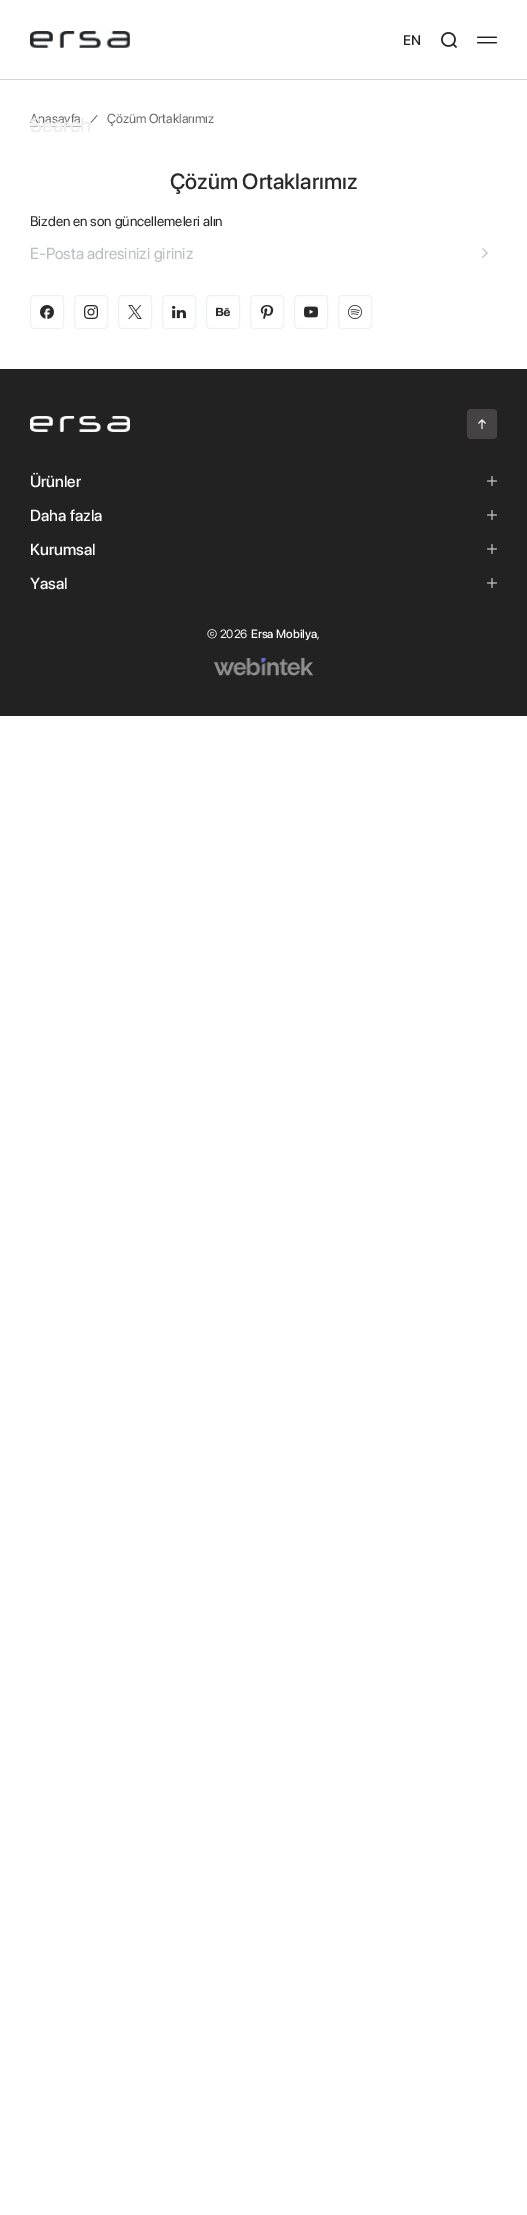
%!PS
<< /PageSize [527 2215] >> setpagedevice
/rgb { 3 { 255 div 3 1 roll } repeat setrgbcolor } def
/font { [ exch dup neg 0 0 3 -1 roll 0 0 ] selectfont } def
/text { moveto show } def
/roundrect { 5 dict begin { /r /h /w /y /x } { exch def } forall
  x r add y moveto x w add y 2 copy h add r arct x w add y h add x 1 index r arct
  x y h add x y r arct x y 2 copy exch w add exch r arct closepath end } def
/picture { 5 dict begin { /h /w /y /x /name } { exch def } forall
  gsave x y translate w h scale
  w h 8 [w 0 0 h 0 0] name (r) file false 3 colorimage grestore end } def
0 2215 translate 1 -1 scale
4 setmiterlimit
255 255 255 rgb
0 0 527 2215 rectfill
211 211 211 rgb
0 79 527 1 rectfill
(img_01.rgb) 30 31 100 17 picture
(img_02.rgb) 441 32 16 16 picture
(img_03.rgb) 477 36 20 8 picture
181 180 180 rgb
30 126 51 1 rectfill
107 106 106 rgb
91 123 moveto -0.5 -0.5 rlineto 6.5 -7.5 rlineto 0.5 0.5 rlineto closepath fill
(img_04.rgb) 482 248 6 10 picture
239 242 243 rgb
30.5 295.5 33 33 3.5 roundrect stroke
(img_05.rgb) 40 305 14 14 picture
74.5 295.5 33 33 3.5 roundrect stroke
(img_06.rgb) 84 305 14 14 picture
118.5 295.5 33 33 3.5 roundrect stroke
(img_07.rgb) 128 305 14 14 picture
162.5 295.5 33 33 3.5 roundrect stroke
(img_08.rgb) 172 305 14 14 picture
206.5 295.5 33 33 3.5 roundrect stroke
(img_09.rgb) 216 307 14 10 picture
250.5 295.5 33 33 3.5 roundrect stroke
(img_10.rgb) 260 305 14 14 picture
294.5 295.5 33 33 3.5 roundrect stroke
(img_11.rgb) 304 306 14 12 picture
338.5 295.5 33 33 3.5 roundrect stroke
(img_12.rgb) 348 305 14 14 picture
34 34 34 rgb
0 369 527 347 rectfill
(img_13.rgb) 30 416 100 16 picture
69 67 67 rgb
467 409 30 30 4 roundrect fill
(img_14.rgb) 478 419 8 10 picture
(img_15.rgb) 487 476 10 10 picture
(img_15.rgb) 487 510 10 10 picture
(img_15.rgb) 487 544 10 10 picture
(img_15.rgb) 487 578 10 10 picture
(img_16.rgb) 214 658 99 18 picture
/SFProDisplay-Medium 14 font
34 34 34 rgb
(EN) 403 45 text
/SFProDisplay-Regular 13 font
107 106 106 rgb
(Anasayfa) 30 123 text
/SFProDisplay-Medium 20 font
238 238 238 rgb
(Search) 30 132 text
/SFProDisplay-Regular 13 font
107 106 106 rgb
(Çözüm Ortaklarımız) 107 123 text
/SFProDisplay-Medium 22 font
43 42 42 rgb
(Çözüm Ortaklarımız) 170 189 text
/SFProDisplay-Regular 14 font
(Bizden en son güncellemeleri alın) 30 226 text
/SFProDisplay-Regular 16 font
186 191 194 rgb
(E-Posta adresinizi giriniz) 30 259 text
/SFProDisplay-Medium 16 font
255 255 255 rgb
(Ürünler) 30 487 text
(Daha fazla) 30 521 text
(Kurumsal) 30 555 text
(Yasal) 30 589 text
/SFProDisplay-Regular 12 font
(© 2026) 207 638 text
/SFProDisplay-Medium 12 font
(Ersa Mobilya) 251 638 text
/SFProDisplay-Regular 12 font
(,) 317 638 text
showpage
